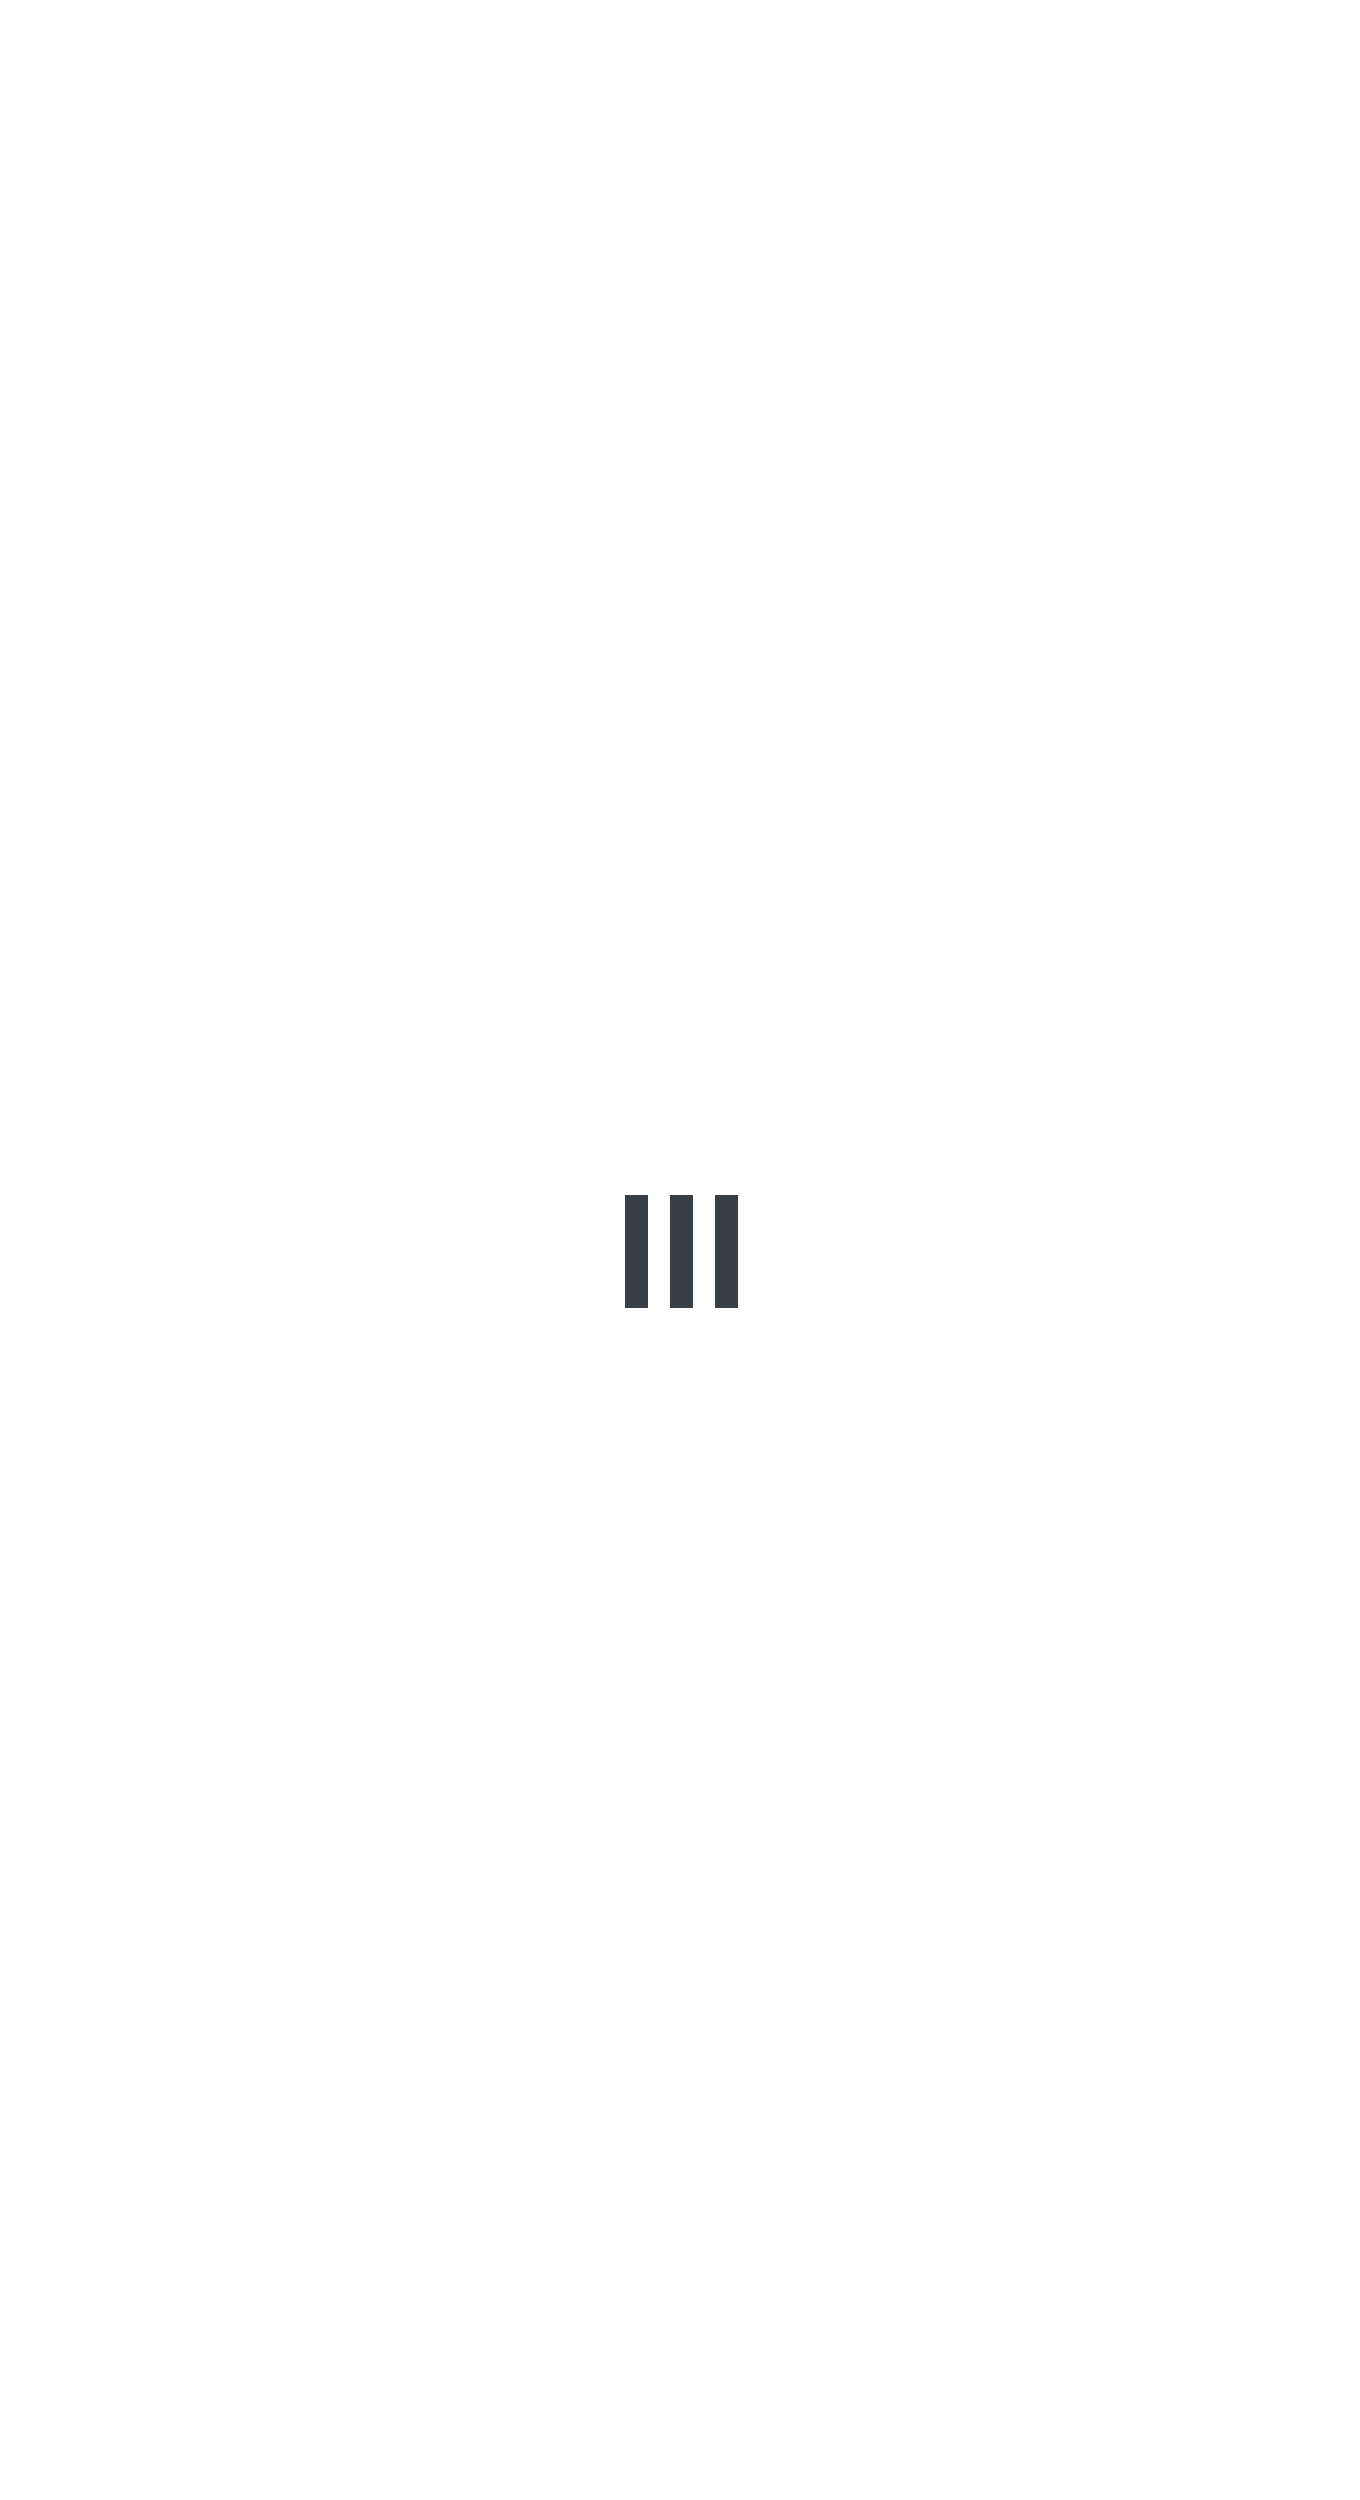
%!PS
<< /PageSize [1360 2500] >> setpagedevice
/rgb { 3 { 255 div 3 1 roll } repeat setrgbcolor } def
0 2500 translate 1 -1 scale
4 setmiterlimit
255 255 255 rgb
0 0 1360 2500 rectfill
57 62 70 rgb
715 1195 23 113 rectfill
670 1195 23 113 rectfill
625 1195 23 113 rectfill
showpage
